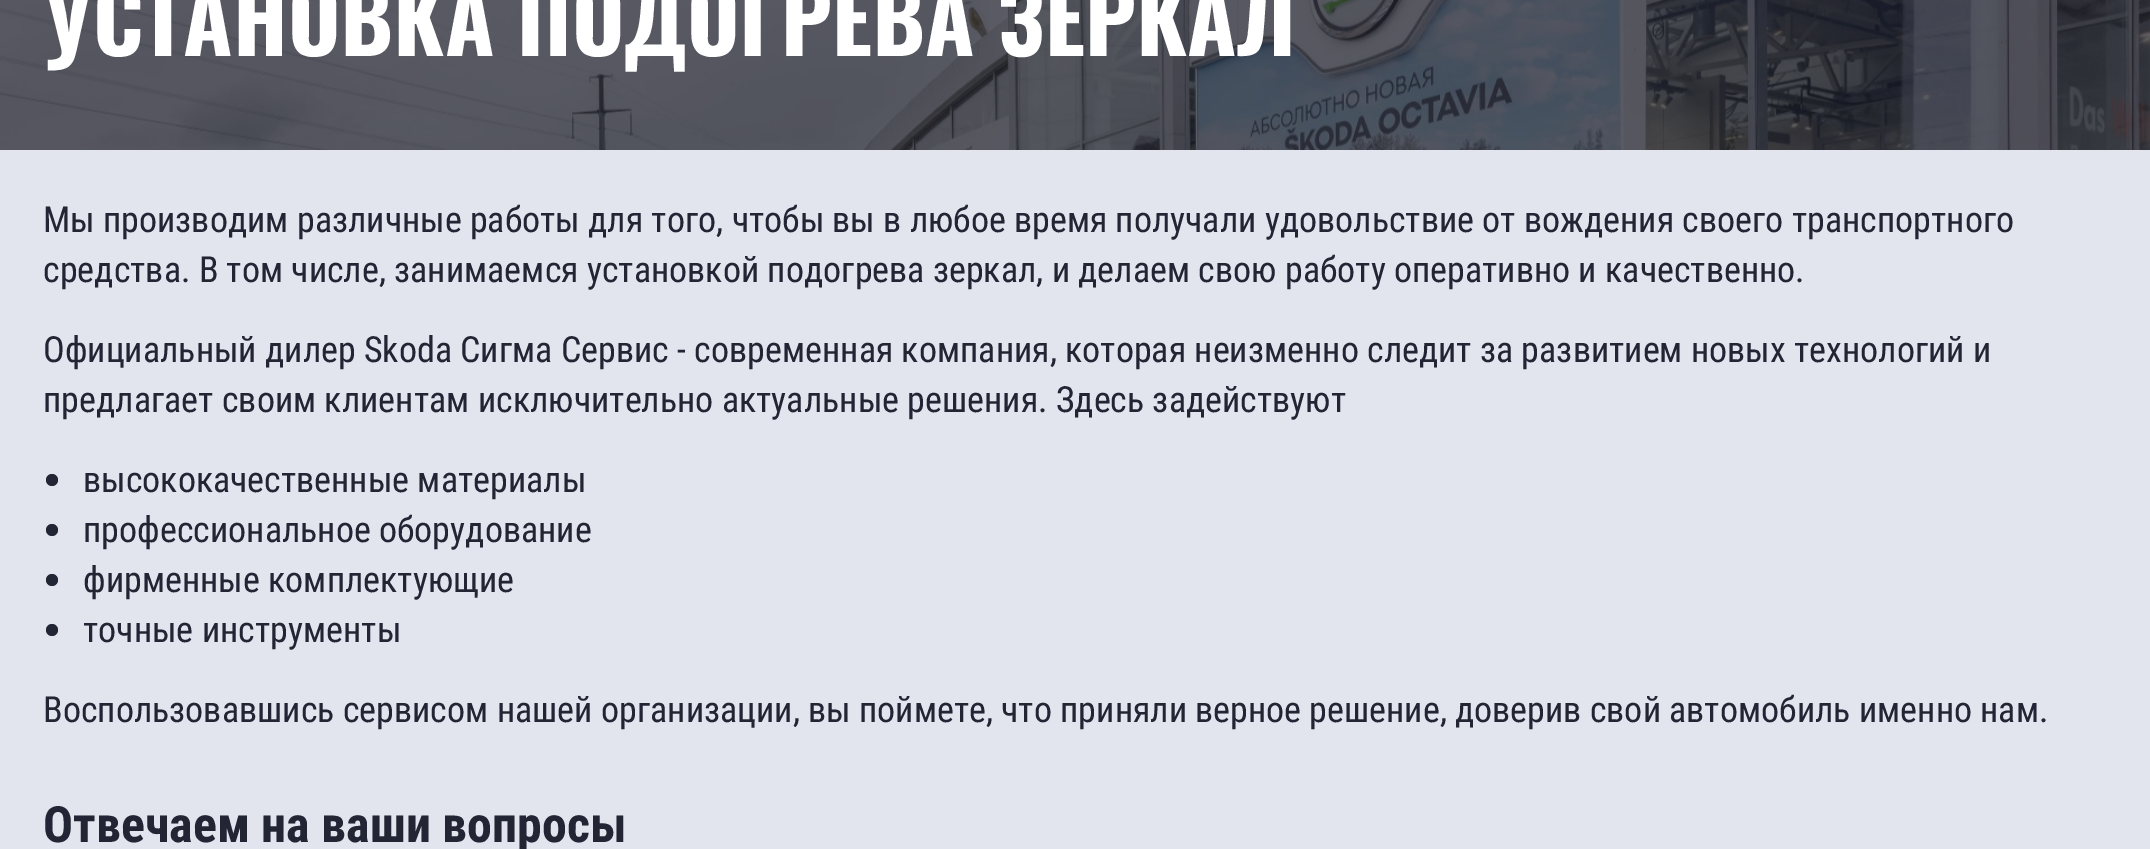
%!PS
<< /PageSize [2150 849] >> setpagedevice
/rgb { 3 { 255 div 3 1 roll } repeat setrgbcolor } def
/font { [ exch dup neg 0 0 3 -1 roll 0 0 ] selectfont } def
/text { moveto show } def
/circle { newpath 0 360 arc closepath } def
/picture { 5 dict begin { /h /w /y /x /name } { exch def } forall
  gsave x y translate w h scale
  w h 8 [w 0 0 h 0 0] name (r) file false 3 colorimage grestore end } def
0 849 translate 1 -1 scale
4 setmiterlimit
227 229 238 rgb
0 0 2150 849 rectfill
(img_01.rgb) 0 0 2150 150 picture
34 37 52 rgb
52 480 6 circle fill
52 530 6 circle fill
52 580 6 circle fill
52 630 6 circle fill
/Oswald-Bold 90 font
255 255 255 rgb
(УСТАНОВКА ПОДОГРЕВА ЗЕРКАЛ) 43 56 text
/RobotoCondensed-Regular 36 font
34 37 52 rgb
(Мы производим различные работы для того, чтобы вы в любое время получали удовольствие от вождения своего транспортного) 43 232 text
(средства. В том числе, занимаемся установкой подогрева зеркал, и делаем свою работу оперативно и качественно.) 43 282 text
(Официальный дилер Skoda Сигма Сервис - современная компания, которая неизменно следит за развитием новых технологий и) 43 362 text
(предлагает своим клиентам исключительно актуальные решения. Здесь задействуют) 43 412 text
(высококачественные материалы) 83 492 text
(профессиональное оборудование) 83 542 text
(фирменные комплектующие) 83 592 text
(точные инструменты) 83 642 text
(Воспользовавшись сервисом нашей организации, вы поймете, что приняли верное решение, доверив свой автомобиль именно нам.) 43 722 text
/RobotoCondensed-Bold 50 font
(Отвечаем на ваши вопросы) 43 842 text
showpage
